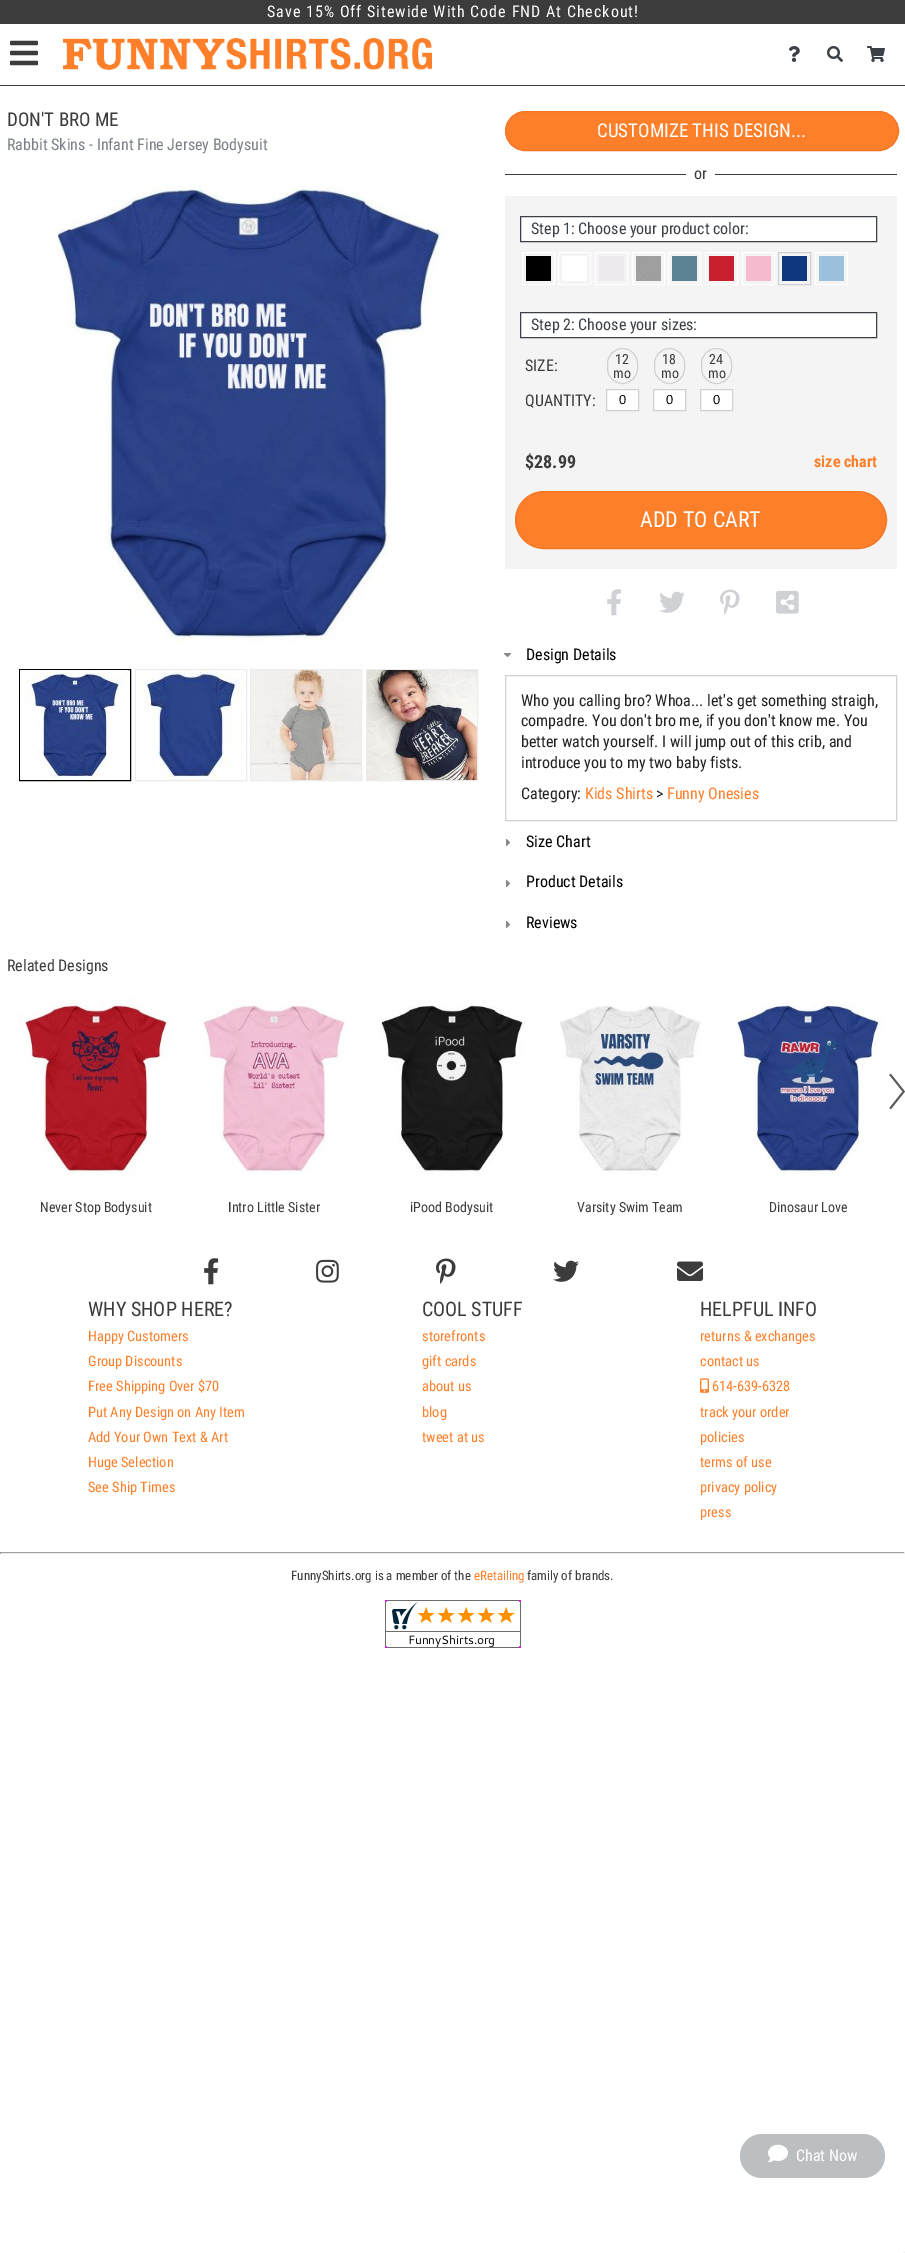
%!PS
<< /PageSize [905 2253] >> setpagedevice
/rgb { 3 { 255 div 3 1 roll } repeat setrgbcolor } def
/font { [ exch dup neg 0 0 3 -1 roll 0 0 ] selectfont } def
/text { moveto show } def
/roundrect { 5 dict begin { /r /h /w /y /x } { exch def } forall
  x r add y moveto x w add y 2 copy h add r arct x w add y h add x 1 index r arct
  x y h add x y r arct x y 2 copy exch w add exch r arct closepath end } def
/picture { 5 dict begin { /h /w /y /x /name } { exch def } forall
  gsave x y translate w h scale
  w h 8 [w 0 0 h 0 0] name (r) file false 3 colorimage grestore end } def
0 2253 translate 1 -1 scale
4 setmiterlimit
255 255 255 rgb
0 0 905 2253 rectfill
60 60 60 rgb
0 0 905 24 rectfill
0 85 905 1 rectfill
(img_01.rgb) 10 40 28 26 picture
(img_02.rgb) 63 38 369 32 picture
(img_03.rgb) 788 46 12 16 picture
(img_04.rgb) 827 46 16 16 picture
(img_05.rgb) 867 46 18 16 picture
(img_06.rgb) 50 185 400 458 picture
0 0 0 rgb
19.5 669.5 111 111 rectstroke
(img_07.rgb) 20 670 108 110 picture
235 236 237 rgb
135.5 669.5 111 111 rectstroke
(img_08.rgb) 136 670 110 110 picture
250.5 669.5 111 111 rectstroke
(img_09.rgb) 251 670 110 110 picture
366.5 669.5 111 111 rectstroke
(img_10.rgb) 367 670 110 110 picture
254 127 42 rgb
505.5 111.5 393 39 19.5 roundrect gsave fill grestore
243 119 37 rgb
stroke
60 60 60 rgb
505 174 392 1 rectfill
255 255 255 rgb
686 174 29 1 rectfill
244 244 245 rgb
505 196 392 373 rectfill
255 255 255 rgb
520.5 216.5 moveto 356 0 rlineto 0 25 rlineto -356 0 rlineto closepath gsave fill grestore
60 65 71 rgb
stroke
255 255 255 rgb
522.5 252.5 32 32 rectstroke
558.5 252.5 32 32 rectstroke
595.5 252.5 32 32 rectstroke
632.5 252.5 32 32 rectstroke
668.5 252.5 32 32 rectstroke
705.5 252.5 32 32 rectstroke
742.5 252.5 32 32 rectstroke
207 209 212 rgb
778.5 252.5 32 32 rectstroke
255 255 255 rgb
815.5 252.5 32 32 rectstroke
0 0 0 rgb
526 256 25 25 rectfill
255 255 255 rgb
562 256 25 25 rectfill
236 234 236 rgb
599 256 25 25 rectfill
(img_11.rgb) 636 256 25 25 picture
92 130 148 rgb
672 256 25 25 rectfill
199 32 46 rgb
709 256 25 25 rectfill
245 186 206 rgb
746 256 25 25 rectfill
15 55 126 rgb
782 256 25 25 rectfill
156 193 221 rgb
819 256 25 25 rectfill
255 255 255 rgb
520.5 312.5 moveto 356 0 rlineto 0 25 rlineto -356 0 rlineto closepath gsave fill grestore
60 65 71 rgb
stroke
207 209 212 rgb
607.5 348.5 30 35 15 roundrect stroke
255 255 255 rgb
606.5 389.5 moveto 32 0 rlineto 0 21 rlineto -32 0 rlineto closepath gsave fill grestore
207 209 212 rgb
stroke
654.5 348.5 30 35 15 roundrect stroke
255 255 255 rgb
653.5 389.5 moveto 32 0 rlineto 0 21 rlineto -32 0 rlineto closepath gsave fill grestore
207 209 212 rgb
stroke
701.5 348.5 30 35 15 roundrect stroke
255 255 255 rgb
700.5 389.5 moveto 32 0 rlineto 0 21 rlineto -32 0 rlineto closepath gsave fill grestore
207 209 212 rgb
stroke
254 127 42 rgb
515.5 491.5 371 57 28.5 roundrect gsave fill grestore
243 119 37 rgb
stroke
(img_12.rgb) 607 589 14 27 picture
(img_13.rgb) 659 591 26 22 picture
(img_14.rgb) 720 589 20 26 picture
(img_15.rgb) 776 590 23 24 picture
(img_16.rgb) 504 653 7 4 picture
207 209 212 rgb
505.5 675.5 391 145 rectstroke
(img_17.rgb) 506 839 4 7 picture
(img_17.rgb) 506 880 4 7 picture
(img_17.rgb) 506 921 4 7 picture
(img_18.rgb) 889 1073 16 37 picture
(img_19.rgb) 18 999 153 176 picture
(img_20.rgb) 203 999 144 174 picture
(img_21.rgb) 381 1005 144 170 picture
(img_22.rgb) 559 1005 142 170 picture
(img_23.rgb) 731 999 152 176 picture
(img_24.rgb) 204 1258 15 27 picture
(img_25.rgb) 316 1259 23 24 picture
(img_26.rgb) 436 1258 20 26 picture
(img_27.rgb) 553 1260 26 22 picture
(img_28.rgb) 677 1261 26 20 picture
(img_29.rgb) 700 1378 9 15 picture
159 159 159 rgb
0 1552 905 1 rectfill
238 238 238 rgb
904 1552 1 2 rectfill
235 236 237 rgb
0 1553 905 1 rectfill
159 159 159 rgb
0 1552 1 2 rectfill
(img_30.rgb) 385 1600 136 48 picture
188 191 194 rgb
740 2134 145 44 22 roundrect fill
(img_31.rgb) 768 2144 20 19 picture
245 245 245 rgb
903 2251 2 2 rectfill
/RobotoCondensed-Regular 16 font
255 255 255 rgb
267 17 moveto 1 0 (Save 15% Off Sitewide With Code FND At Checkout!) ashow
/RobotoCondensed-Regular 19 font
60 60 60 rgb
(DON'T BRO ME) 7 126 text
/RobotoCondensed-Regular 16 font
124 129 136 rgb
(Rabbit Skins - Infant Fine Jersey Bodysuit) 7 150 text
/RobotoCondensed-Regular 19 font
255 255 255 rgb
(CUSTOMIZE THIS DESIGN...) 597 137 text
/RobotoCondensed-Regular 16 font
60 60 60 rgb
(or) 694 179 text
60 65 71 rgb
(Step 1: Choose your product color:) 531 234 text
(Step 2: Choose your sizes:) 531 330 text
60 60 60 rgb
(SIZE:) 525 371 text
(QUANTITY:) 525 406 text
/RobotoCondensed-Regular 14 font
(12) 615 364 text
(mo) 613 378 text
/LiberationSans-Regular 13 font
0 0 0 rgb
(0) 619 404 text
/RobotoCondensed-Regular 14 font
60 60 60 rgb
(18) 662 364 text
(mo) 661 378 text
/LiberationSans-Regular 13 font
0 0 0 rgb
(0) 666 404 text
/RobotoCondensed-Regular 14 font
60 60 60 rgb
(24) 709 364 text
(mo) 708 378 text
/LiberationSans-Regular 13 font
0 0 0 rgb
(0) 713 404 text
/RobotoCondensed-Bold 18 font
60 60 60 rgb
($28.99) 525 468 text
/RobotoCondensed-Bold 16 font
254 127 42 rgb
(size chart) 814 467 text
/RobotoCondensed-Regular 22 font
255 255 255 rgb
(ADD TO CART) 640 527 text
/RobotoCondensed-Regular 16 font
0 0 0 rgb
(Design Details) 526 660 text
34 34 34 rgb
(Who you calling bro? Whoa... let's get something straigh,) 521 706 text
(compadre. You don't bro me, if you don't know me. You) 521 726 text
(better watch yourself. I will jump out of this crib, and) 521 747 text
(introduce you to my two baby fists.) 521 768 text
(Category:) 521 799 text
254 127 42 rgb
(Kids Shirts) 585 799 text
34 34 34 rgb
(>) 656 799 text
254 127 42 rgb
(Funny Onesies) 667 799 text
0 0 0 rgb
(Size Chart) 526 847 text
(Product Details) 526 887 text
(Reviews) 526 928 text
60 60 60 rgb
(Related Designs) 7 971 text
/RobotoCondensed-Regular 14 font
(Never Stop Bodysuit) 40 1212 text
(Intro Little Sister) 228 1212 text
(iPood Bodysuit) 410 1212 text
(Varsity Swim Team) 577 1212 text
(Dinosaur Love) 769 1212 text
/RobotoCondensed-Regular 20 font
(WHY SHOP HERE?) 88 1316 text
/RobotoCondensed-Regular 14.4 font
254 127 42 rgb
(Happy Customers) 88 1341 text
(Group Discounts) 88 1366 text
(Free Shipping Over $70) 88 1391 text
(Put Any Design on Any Item) 88 1417 text
(Add Your Own Text & Art) 88 1442 text
(Huge Selection) 88 1467 text
(See Ship Times) 88 1492 text
/RobotoCondensed-Regular 20 font
60 60 60 rgb
(COOL STUFF) 422 1316 text
/RobotoCondensed-Regular 14.4 font
254 127 42 rgb
(storefronts) 422 1341 text
(gift cards) 422 1366 text
(about us) 422 1391 text
(blog) 422 1417 text
(tweet at us) 422 1442 text
/RobotoCondensed-Regular 20 font
60 60 60 rgb
(HELPFUL INFO) 700 1316 text
/RobotoCondensed-Regular 14.4 font
254 127 42 rgb
(returns & exchanges) 700 1341 text
(contact us) 700 1366 text
(614-639-6328) 712 1391 text
(track your order) 700 1417 text
(policies) 700 1442 text
(terms of use) 700 1467 text
(privacy policy) 700 1492 text
(press) 700 1517 text
/RobotoCondensed-Regular 13 font
60 60 60 rgb
(FunnyShirts.org is a member of the) 291 1580 text
254 127 42 rgb
(eRetailing) 474 1580 text
60 60 60 rgb
(family of brands.) 527 1580 text
/RobotoCondensed-Regular 16 font
255 255 255 rgb
(Chat Now) 796 2161 text
showpage
